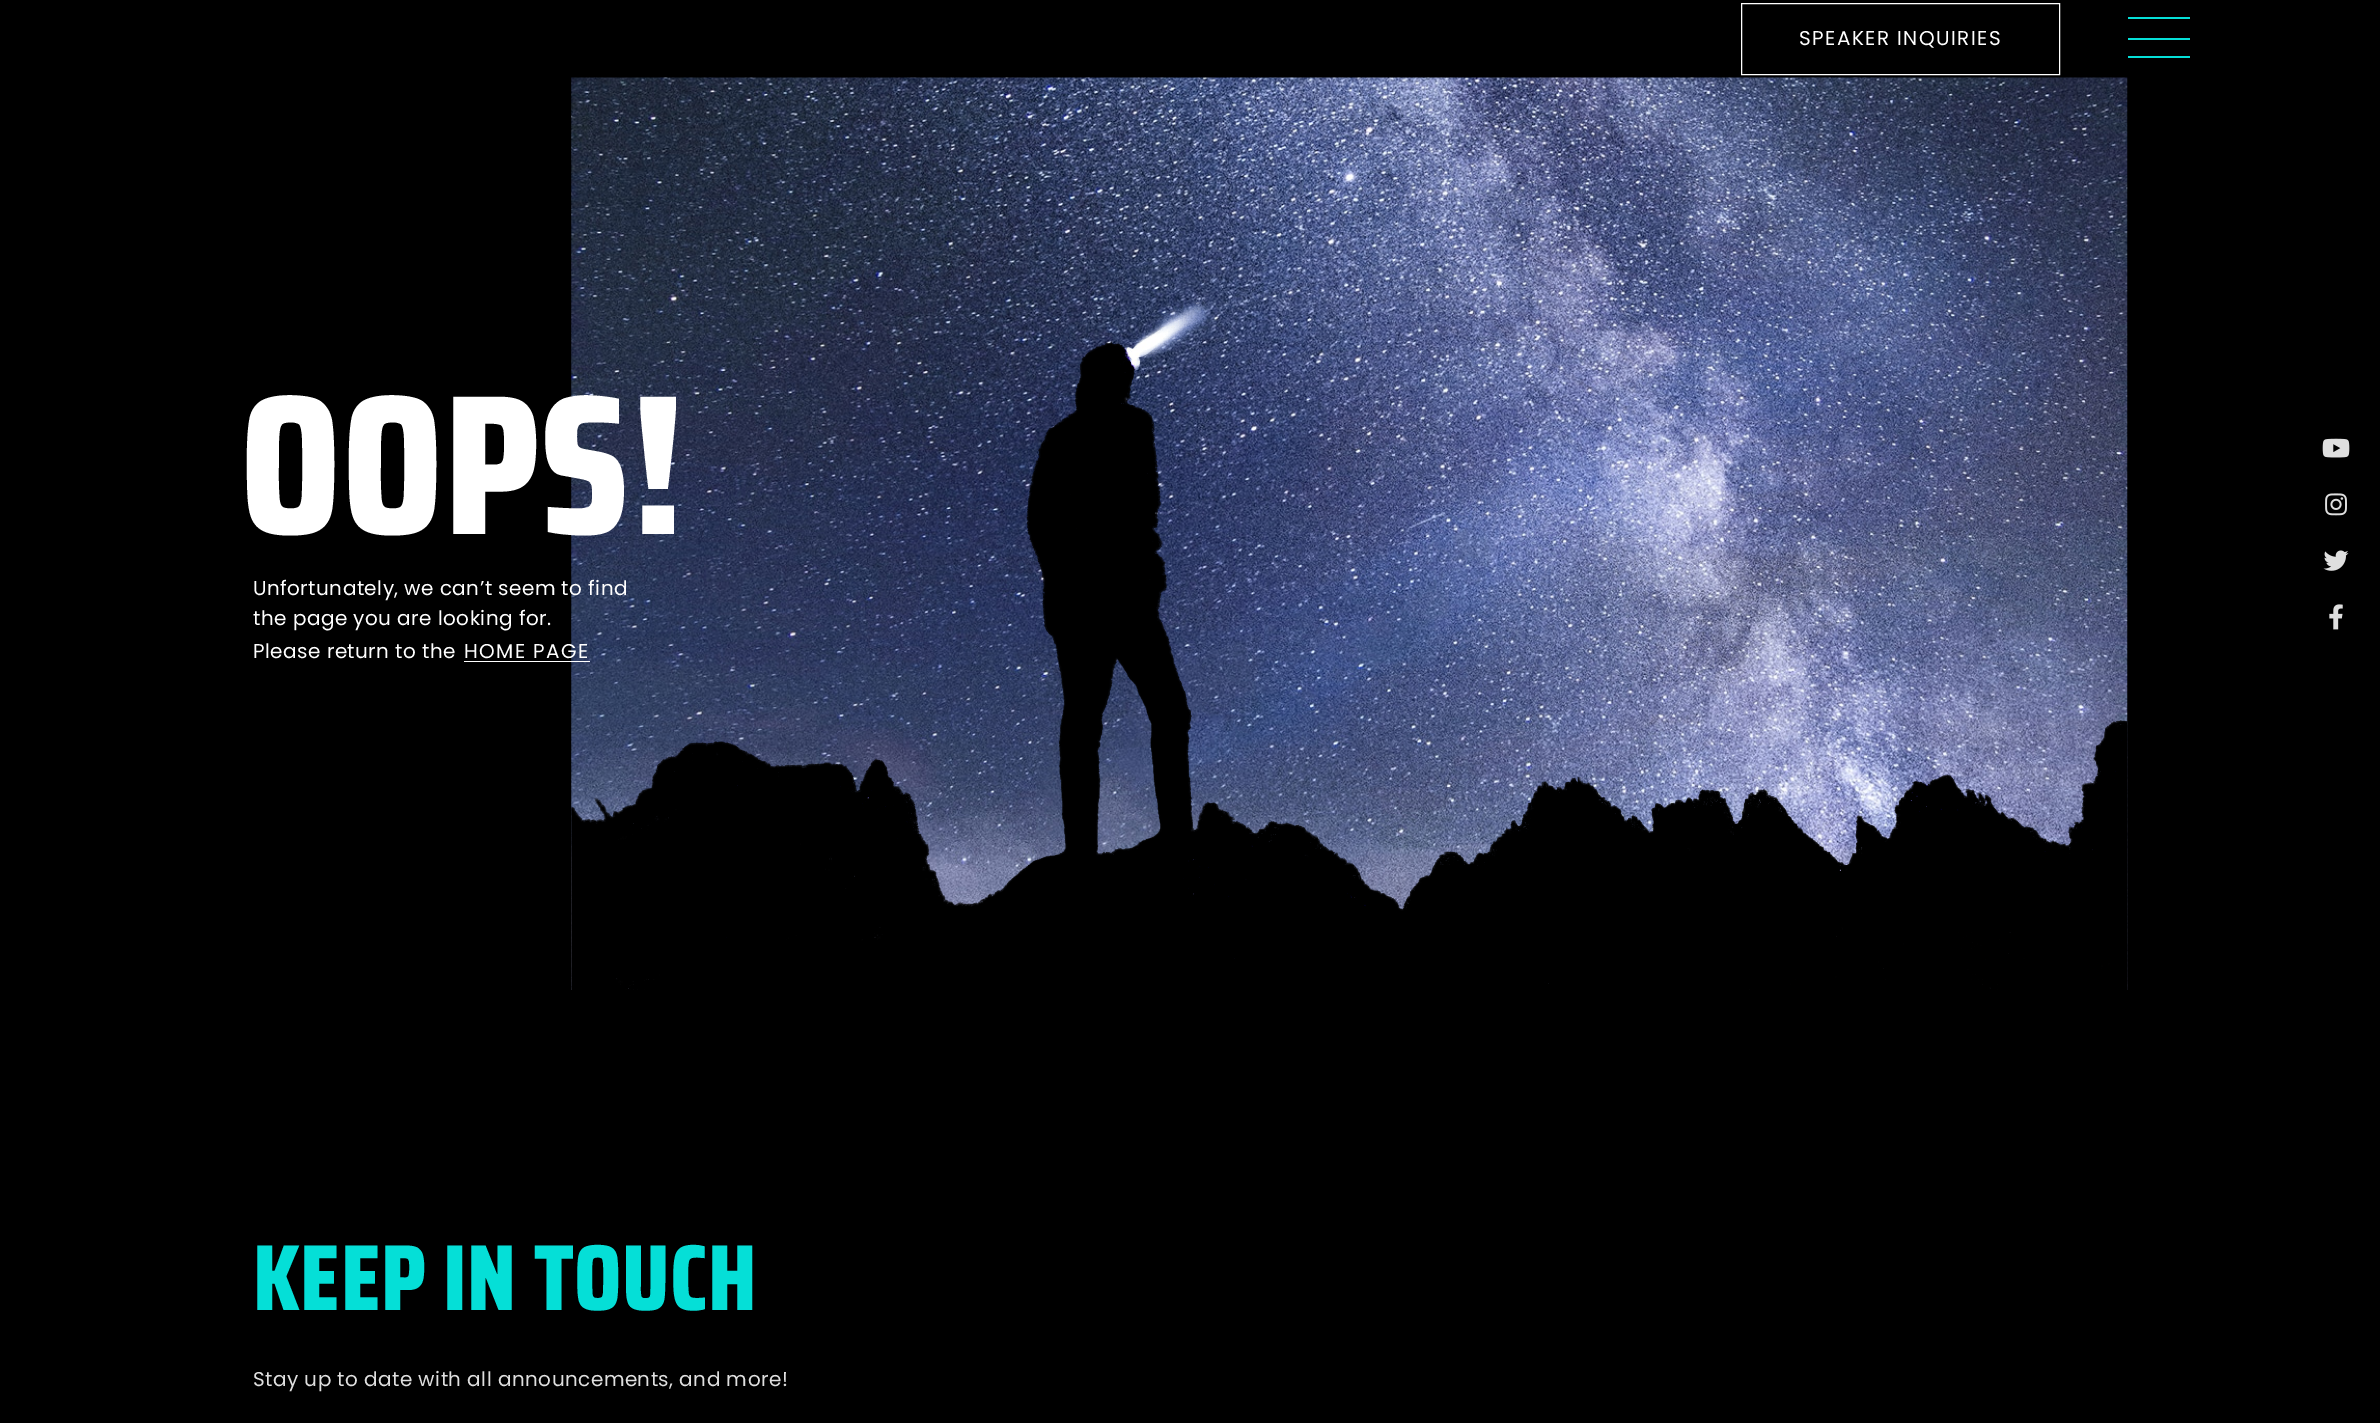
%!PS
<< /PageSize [2380 1423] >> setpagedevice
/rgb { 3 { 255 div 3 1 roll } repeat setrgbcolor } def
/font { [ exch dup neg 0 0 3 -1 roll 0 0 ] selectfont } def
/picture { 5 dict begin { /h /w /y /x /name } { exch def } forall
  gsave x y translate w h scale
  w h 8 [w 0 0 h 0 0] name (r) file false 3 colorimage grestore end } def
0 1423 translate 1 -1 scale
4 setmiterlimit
0 0 0 rgb
0 0 2380 1423 rectfill
255 255 255 rgb
1741.5 3.5 318 71 rectstroke
5 223 215 rgb
2128 56 62 2 rectfill
2128 38 62 2 rectfill
2128 17 62 2 rectfill
(img_01.rgb) 571 77 1557 913 picture
(img_02.rgb) 571 300 1557 690 picture
(img_03.rgb) 2322 438 28 20 picture
(img_04.rgb) 2325 493 22 23 picture
(img_05.rgb) 2323 550 26 21 picture
(img_06.rgb) 2329 604 14 26 picture
255 255 255 rgb
464 661 126 1 rectfill
/Poppins-Regular 20 font
1799 45 moveto 1.4 0 (SPEAKER INQUIRIES) ashow
/SairaCondensed-ExtraBold 200 font
240 534 moveto 0.45 0 (OOPS!) ashow
/Poppins-Regular 20 font
253 595 moveto 0.45 0 (Unfortunately, we can’t seem to find) ashow
253 625 moveto 0.45 0 (the page you are looking for.) ashow
253 658 moveto 0.45 0 (Please return to the) ashow
464 658 moveto 1.4 0 (HOME PAGE) ashow
/SairaCondensed-ExtraBold 93.75 font
5 223 215 rgb
253 1310 moveto 0.45 0 (KEEP IN TOUCH) ashow
/Poppins-Regular 20 font
223 223 223 rgb
253 1386 moveto 0.45 0 (Stay up to date with all announcements, and more!) ashow
showpage
